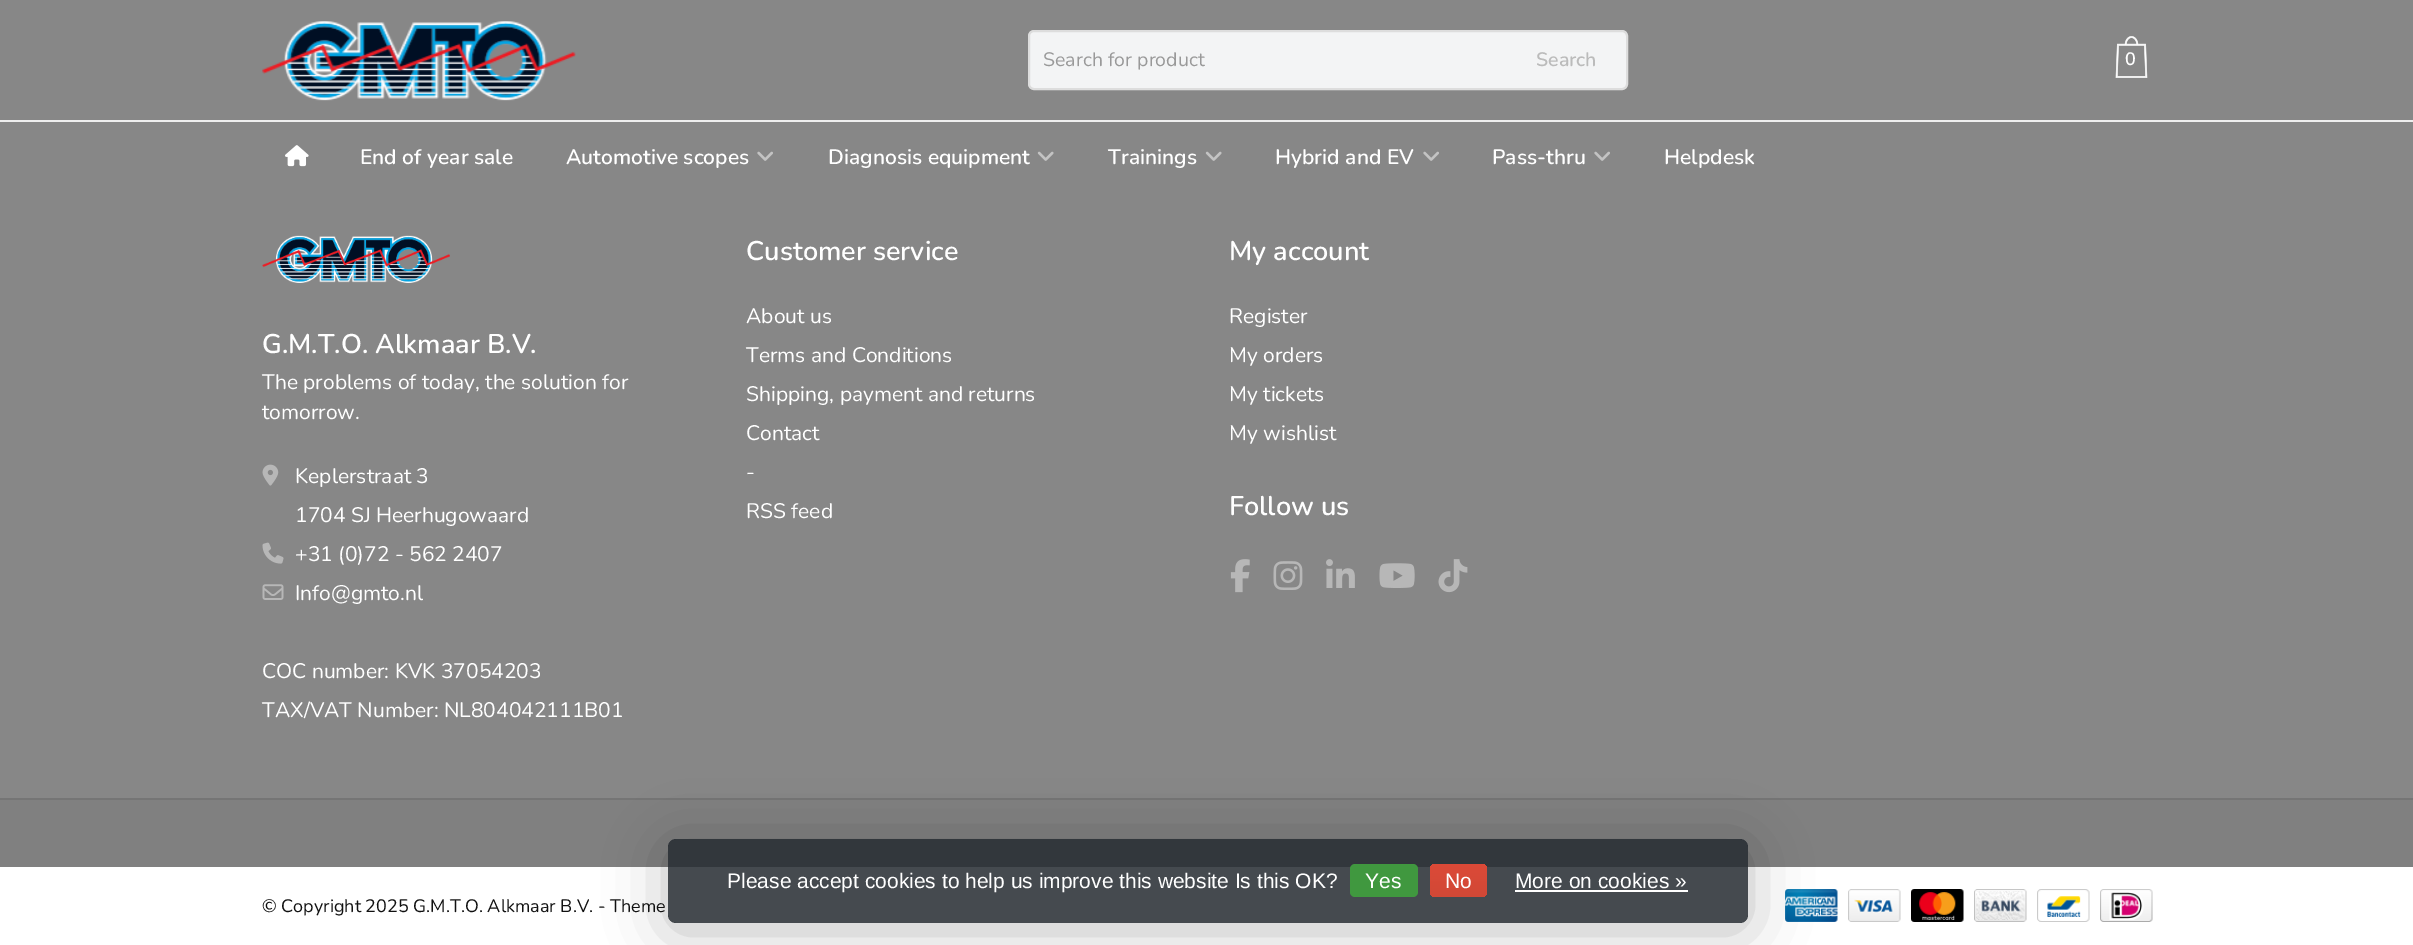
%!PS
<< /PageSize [2413 945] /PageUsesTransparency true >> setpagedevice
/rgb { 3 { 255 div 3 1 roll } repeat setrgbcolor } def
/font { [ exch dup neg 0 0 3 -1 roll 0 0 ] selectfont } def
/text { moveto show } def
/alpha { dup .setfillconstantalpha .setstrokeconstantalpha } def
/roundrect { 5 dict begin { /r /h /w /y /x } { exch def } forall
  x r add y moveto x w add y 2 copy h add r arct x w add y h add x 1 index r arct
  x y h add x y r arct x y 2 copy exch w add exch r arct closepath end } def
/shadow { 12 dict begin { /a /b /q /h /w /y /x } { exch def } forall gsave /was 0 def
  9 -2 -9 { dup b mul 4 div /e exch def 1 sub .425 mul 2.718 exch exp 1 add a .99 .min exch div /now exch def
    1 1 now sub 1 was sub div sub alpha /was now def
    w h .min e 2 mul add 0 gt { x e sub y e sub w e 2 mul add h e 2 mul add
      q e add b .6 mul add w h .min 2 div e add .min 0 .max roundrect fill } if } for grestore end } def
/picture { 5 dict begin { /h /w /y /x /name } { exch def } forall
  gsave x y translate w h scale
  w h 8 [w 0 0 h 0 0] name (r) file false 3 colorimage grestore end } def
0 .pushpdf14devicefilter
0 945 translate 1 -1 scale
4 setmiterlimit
255 255 255 rgb
0 0 2413 945 rectfill
135 135 135 rgb
0 0 2413 798 rectfill
(img_01.rgb) 262 21 314 80 picture
243 244 245 rgb
1029 31 598 58 5 roundrect gsave fill grestore
221 221 221 rgb
2 setlinewidth
stroke
(img_02.rgb) 2115 36 33 42 picture
(img_03.rgb) 285 145 24 22 picture
(img_04.rgb) 757 151 16 10 picture
(img_05.rgb) 1037 151 17 10 picture
(img_05.rgb) 1205 151 17 10 picture
(img_04.rgb) 1423 151 16 10 picture
(img_04.rgb) 1594 151 16 10 picture
238 238 238 rgb
0 120 2413 2 rectfill
(img_06.rgb) 262 235 188 48 picture
(img_07.rgb) 262 464 17 22 picture
(img_08.rgb) 262 542 22 22 picture
(img_09.rgb) 262 584 22 16 picture
(img_10.rgb) 1230 559 20 34 picture
(img_11.rgb) 1273 561 30 29 picture
(img_12.rgb) 1326 559 29 29 picture
(img_13.rgb) 1379 563 36 25 picture
(img_14.rgb) 1438 559 30 34 picture
117 117 117 rgb
0 798 2413 2 rectfill
128 128 128 rgb
0 800 2413 67 rectfill
(img_15.rgb) 1785 889 53 33 picture
gsave
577 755 moveto 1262 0 rlineto 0 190 rlineto -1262 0 rlineto closepath 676 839 moveto 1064 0 rlineto 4.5 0 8 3.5 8 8 rcurveto 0 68 rlineto 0 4.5 -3.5 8 -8 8 rcurveto -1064 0 rlineto -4.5 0 -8 -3.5 -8 -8 rcurveto 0 -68 rlineto 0 -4.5 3.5 -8 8 -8 rcurveto closepath eoclip newpath
0 0 0 rgb
668 846 1080 84 8 30 0.25 shadow
grestore
0.85 alpha
36 42 48 rgb
668 839 1080 84 8 roundrect fill
1 alpha
64 152 63 rgb
1350 864 68 33 5 roundrect fill
gsave 1430 864 57 33 5 roundrect clip newpath
<< /ShadingType 2 /ColorSpace /DeviceRGB /Coords [1458 864 1458 897] /Extend [true true] /Function << /FunctionType 2 /Domain [0 1] /C0 [0.863 0.29 0.22] /C1 [0.82 0.282 0.212] /N 1 >> >> shfill grestore
255 255 255 rgb
1515 890 173 2 rectfill
(img_16.rgb) 1848 889 53 33 picture
(img_17.rgb) 1911 889 53 33 picture
(img_18.rgb) 1974 889 53 33 picture
(img_19.rgb) 2037 889 53 33 picture
(img_20.rgb) 2100 889 53 33 picture
/Nunito-Regular 19.5 font
153 153 153 rgb
(Search for product) 1043 66 text
/Nunito-SemiBold 19.5 font
187 187 187 rgb
(Search) 1536 66 text
/Nunito-SemiBold 18 font
255 255 255 rgb
(0) 2125 65 text
/Nunito-SemiBold 21 font
(End of year sale) 360 164 text
(Automotive scopes) 566 164 text
(Diagnosis equipment) 828 164 text
(Trainings) 1108 164 text
(Hybrid and EV) 1275 164 text
(Pass-thru) 1492 164 text
(Helpdesk) 1664 164 text
/Nunito-SemiBold 27 font
(G.M.T.O. Alkmaar B.V.) 262 353 text
/Nunito-Regular 21 font
(The problems of today, the solution for) 262 389 text
(tomorrow.) 262 419 text
(Keplerstraat 3) 295 483 text
(1704 SJ Heerhugowaard) 295 522 text
(+31 \(0\)72 - 562 2407) 295 561 text
(Info@gmto.nl) 295 600 text
(COC number: KVK 37054203) 262 678 text
(TAX/VAT Number: NL804042111B01) 262 717 text
/Nunito-SemiBold 27 font
(Customer service) 746 260 text
/Nunito-Regular 21 font
(About us) 746 323 text
(Terms and Conditions) 746 362 text
(Shipping, payment and returns) 746 401 text
(Contact) 746 440 text
(-) 746 479 text
(RSS feed) 746 518 text
/Nunito-SemiBold 27 font
(My account) 1229 260 text
/Nunito-Regular 21 font
(Register) 1229 323 text
(My orders) 1229 362 text
(My tickets) 1229 401 text
(My wishlist) 1229 440 text
/Nunito-SemiBold 27 font
(Follow us) 1229 515 text
/LiberationSans-Regular 21 font
(Please accept cookies to help us improve this website Is this OK?) 727 888 text
(Yes) 1365 888 text
(No) 1445 888 text
(More on cookies ») 1515 888 text
/Nunito-Regular 18 font
17 17 17 rgb
(© Copyright 2025 G.M.T.O. Alkmaar B.V. - Theme) 262 912 text
.poppdf14devicefilter showpage
